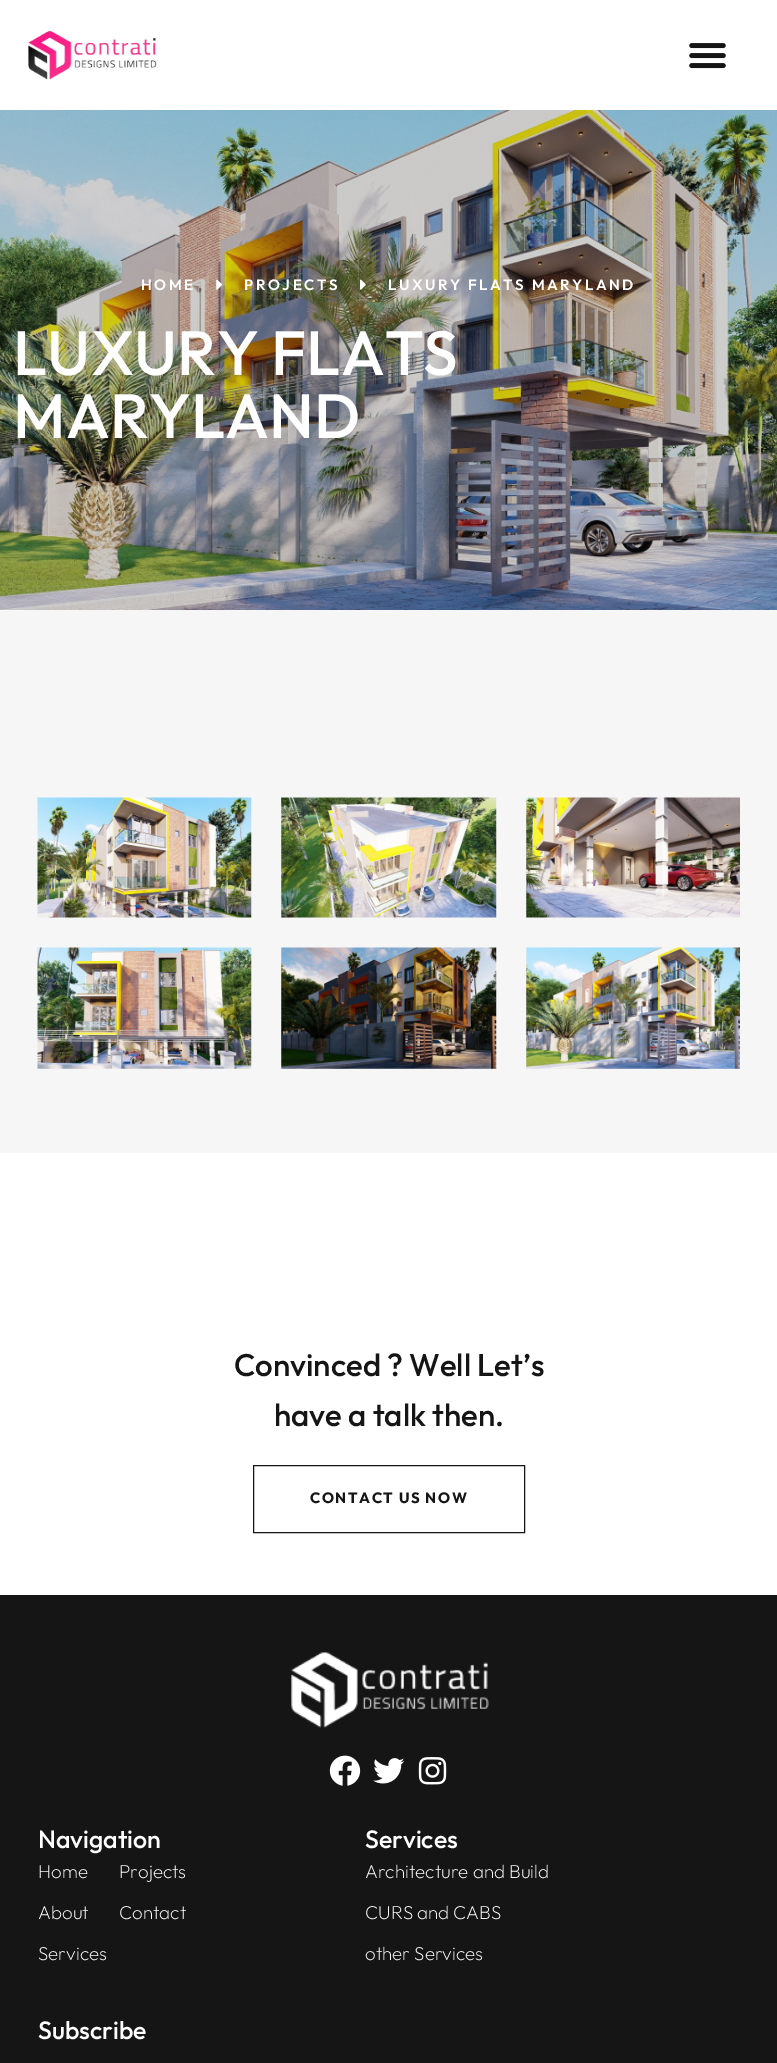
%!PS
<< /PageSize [777 2063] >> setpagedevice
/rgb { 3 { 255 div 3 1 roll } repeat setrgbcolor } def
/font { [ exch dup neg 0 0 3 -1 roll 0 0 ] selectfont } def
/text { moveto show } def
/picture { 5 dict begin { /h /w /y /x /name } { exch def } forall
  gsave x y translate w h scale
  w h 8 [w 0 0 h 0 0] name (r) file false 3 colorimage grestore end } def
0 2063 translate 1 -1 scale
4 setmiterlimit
255 255 255 rgb
0 0 777 2063 rectfill
(img_01.rgb) 28 31 129 49 picture
(img_02.rgb) 689 43 37 26 picture
(img_03.rgb) 0 110 777 500 picture
(img_04.rgb) 216 279 6 11 picture
(img_05.rgb) 360 279 6 11 picture
246 246 246 rgb
0 610 777 543 rectfill
(img_06.rgb) 37 797 215 121 picture
(img_07.rgb) 281 797 216 121 picture
(img_08.rgb) 526 797 214 121 picture
(img_09.rgb) 37 947 215 122 picture
(img_10.rgb) 281 947 216 122 picture
(img_11.rgb) 526 947 214 122 picture
21 21 21 rgb
253.5 1465.5 271 67 rectstroke
0 1595 777 468 rectfill
(img_12.rgb) 291 1652 198 76 picture
(img_13.rgb) 329 1755 32 31 picture
(img_14.rgb) 373 1758 32 26 picture
(img_15.rgb) 418 1757 29 28 picture
/Outfit-SemiBold 15 font
255 255 255 rgb
141 290 moveto 2.5 0 (HOME) ashow
244 290 moveto 2.5 0 (PROJECTS) ashow
388 290 moveto 2.5 0 (LUXURY FLATS MARYLAND) ashow
/Outfit-Medium 62.5 font
(LUXURY FLATS) 13 375 text
(MARYLAND) 13 438 text
/Outfit-Medium 31.25 font
21 21 21 rgb
(Convinced ? Well Let’s) 234 1376 text
(have a talk then.) 274 1426 text
/Outfit-Bold 15 font
310 1503 moveto 1.5 0 (CONTACT US NOW) ashow
/Outfit-Medium 25 font
255 255 255 rgb
(Navigation) 38 1848 text
/Outfit-ExtraLight 18.75 font
(Home) 38 1878 text
(About) 38 1919 text
(Services) 38 1960 text
(Projects) 119 1878 text
(Contact) 119 1919 text
/Outfit-Medium 25 font
(Services) 365 1848 text
/Outfit-ExtraLight 18.75 font
(Architecture and Build) 365 1878 text
(CURS and CABS) 365 1919 text
(other Services) 365 1960 text
/Outfit-Medium 25 font
(Subscribe) 38 2039 text
showpage
